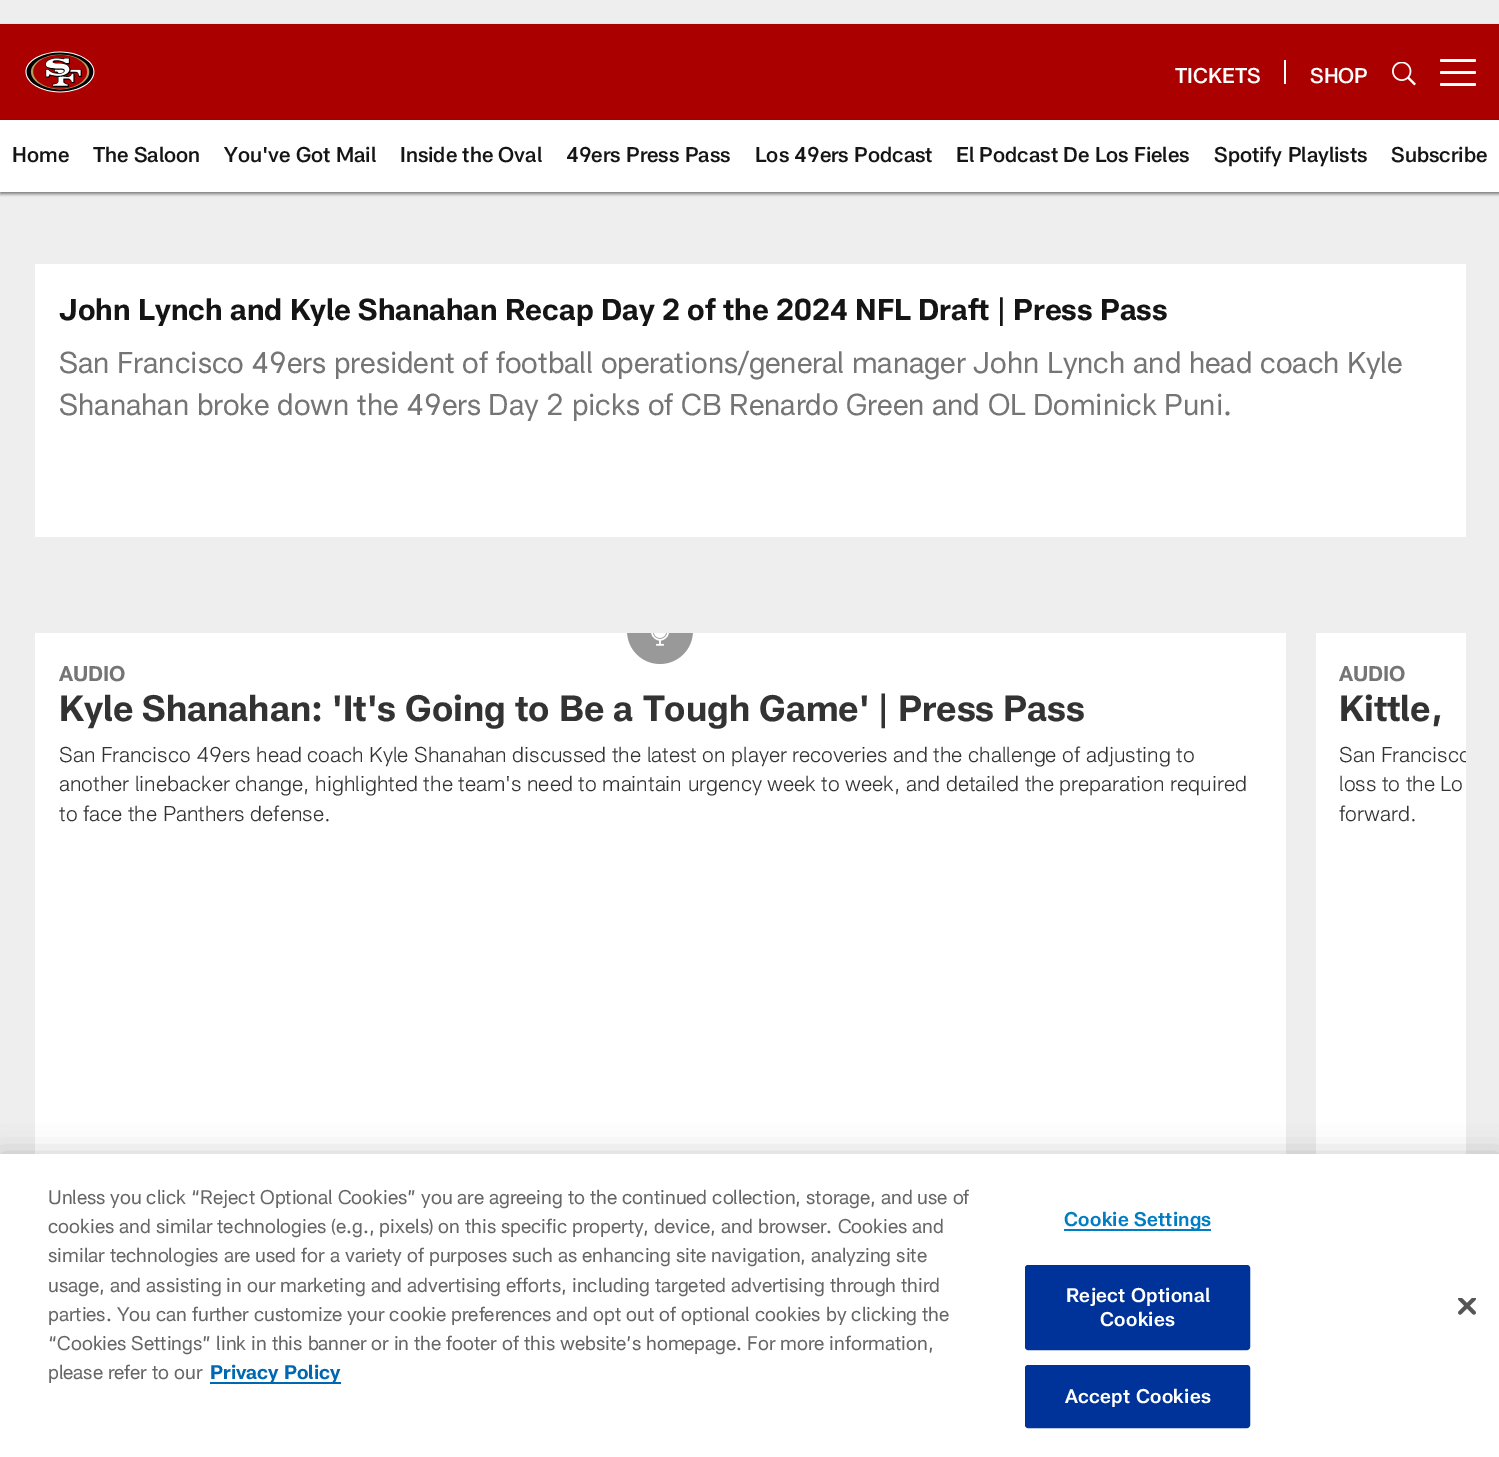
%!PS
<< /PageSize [1499 1457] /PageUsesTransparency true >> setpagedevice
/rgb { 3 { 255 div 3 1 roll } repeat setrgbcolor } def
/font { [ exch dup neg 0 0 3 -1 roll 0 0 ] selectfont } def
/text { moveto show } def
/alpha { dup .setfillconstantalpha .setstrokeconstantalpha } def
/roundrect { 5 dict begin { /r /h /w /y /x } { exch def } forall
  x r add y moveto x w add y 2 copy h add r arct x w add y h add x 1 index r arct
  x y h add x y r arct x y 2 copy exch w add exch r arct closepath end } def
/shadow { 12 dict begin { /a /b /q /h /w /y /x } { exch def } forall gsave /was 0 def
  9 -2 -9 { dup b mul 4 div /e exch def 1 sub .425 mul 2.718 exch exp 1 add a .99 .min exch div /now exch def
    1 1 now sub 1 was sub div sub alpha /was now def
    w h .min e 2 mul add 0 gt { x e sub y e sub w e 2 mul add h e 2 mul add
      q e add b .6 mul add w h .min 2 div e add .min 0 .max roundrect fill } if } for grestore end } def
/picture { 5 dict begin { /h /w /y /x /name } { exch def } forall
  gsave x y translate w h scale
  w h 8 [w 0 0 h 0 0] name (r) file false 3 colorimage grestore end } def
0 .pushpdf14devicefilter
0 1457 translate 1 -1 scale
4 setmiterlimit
238 238 238 rgb
0 0 1499 1457 rectfill
0 0 0 rgb
0 26 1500 96 0 1.5 0.47 shadow
170 0 0 rgb
0 24 1499 96 rectfill
(img_01.rgb) 25 51 70 42 picture
255 255 255 rgb
1284 60 2 24 rectfill
(img_02.rgb) 1392 62 24 24 picture
1440 71 36 3 1.5 roundrect fill
1440 59 36 3 1.5 roundrect fill
1440 83 36 3 1.5 roundrect fill
0 0 0 rgb
0 122 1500 72 0 1.5 0.47 shadow
255 255 255 rgb
0 120 1499 72 rectfill
35 264 1431 273 rectfill
35 633 1251 521 rectfill
(img_03.rgb) 627 633 66 31 picture
1316 633 150 521 rectfill
0 0 0 rgb
0 1154 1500 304 0 13.5 0.2 shadow
255 255 255 rgb
0 1154 1499 303 rectfill
0 103 177 rgb
210 1382 131 2 rectfill
0 125 195 rgb
1064 1229 147 2 rectfill
0 51 153 rgb
1026 1266 223 83 2 roundrect gsave fill grestore
2 setlinewidth
stroke
1026 1366 223 61 2 roundrect gsave fill grestore
stroke
(img_04.rgb) 1458 1298 18 17 picture
/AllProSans-Medium 21 font
255 255 255 rgb
(TICKETS) 1175 83 text
(SHOP) 1310 83 text
21 21 21 rgb
(Home) 12 162 text
(The Saloon) 93 162 text
(You've Got Mail) 224 162 text
(Inside the Oval) 400 162 text
(49ers Press Pass) 566 162 text
(Los 49ers Podcast) 755 162 text
(El Podcast De Los Fieles) 956 162 text
(Spotify Playlists) 1214 162 text
(Subscribe) 1391 162 text
/AllProSans-Bold 29.7 font
(John Lynch and Kyle Shanahan Recap Day 2 of the 2024 NFL Draft | Press Pass) 59 320 text
/AllProSans-Regular 29.7 font
117 117 117 rgb
(San Francisco 49ers president of football operations/general manager John Lynch and head coach Kyle) 59 373 text
(Shanahan broke down the 49ers Day 2 picks of CB Renardo Green and OL Dominick Puni.) 59 415 text
/AllProSans-Bold 21 font
(AUDIO) 59 681 text
/AllProSans-Bold 36 font
51 51 51 rgb
(Kyle Shanahan: 'It's Going to Be a Tough Game' | Press Pass) 59 721 text
/AllProSans-Light 21 font
(San Francisco 49ers head coach Kyle Shanahan discussed the latest on player recoveries and the challenge of adjusting to) 59 762 text
(another linebacker change, highlighted the team's need to maintain urgency week to week, and detailed the preparation required) 59 791 text
(to face the Panthers defense.) 59 821 text
/AllProSans-Bold 21 font
117 117 117 rgb
(AUDIO) 1339 681 text
/AllProSans-Bold 36 font
51 51 51 rgb
(Kittle,) 1339 721 text
gsave
1316 633 150 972 rectclip
/AllProSans-Light 21 font
(San Francisco) 1339 762 text
grestore
/AllProSans-Light 21 font
(loss to the Lo) 1339 791 text
(forward.) 1339 821 text
/AllProSans-Regular 19.5 font
102 102 102 rgb
(Unless you click “Reject Optional Cookies” you are agreeing to the continued collection, storage, and use of) 48 1204 text
(cookies and similar technologies \(e.g., pixels\) on this specific property, device, and browser. Cookies and) 48 1233 text
(similar technologies are used for a variety of purposes such as enhancing site navigation, analyzing site) 48 1262 text
(usage, and assisting in our marketing and advertising efforts, including targeted advertising through third) 48 1292 text
(parties. You can further customize your cookie preferences and opt out of optional cookies by clicking the) 48 1321 text
(“Cookies Settings” link in this banner or in the footer of this website’s homepage. For more information,) 48 1350 text
(please refer to our) 48 1379 text
/AllProSans-Bold 19.5 font
0 103 177 rgb
(Privacy Policy) 210 1379 text
/AllProSans-SemiBold 19.5 font
0 125 195 rgb
1064 1226 moveto 0.25 0 (Cookie Settings) ashow
255 255 255 rgb
1066 1302 moveto 0.25 0 (Reject Optional) ashow
1100 1326 moveto 0.25 0 (Cookies) ashow
1065 1403 moveto 0.25 0 (Accept Cookies) ashow
.poppdf14devicefilter showpage
